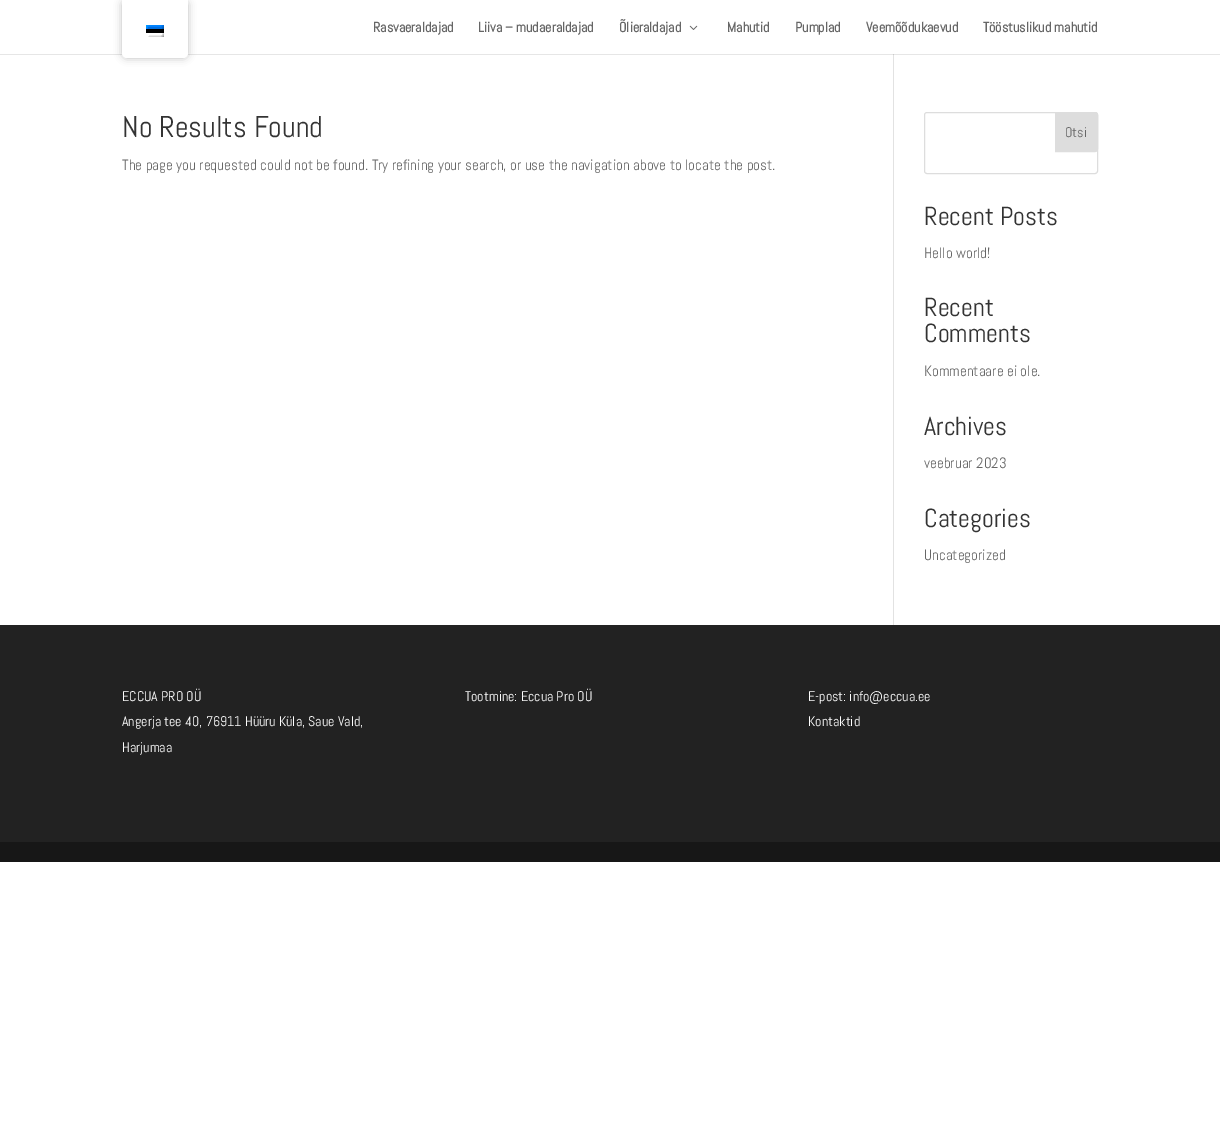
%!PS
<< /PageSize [1220 1143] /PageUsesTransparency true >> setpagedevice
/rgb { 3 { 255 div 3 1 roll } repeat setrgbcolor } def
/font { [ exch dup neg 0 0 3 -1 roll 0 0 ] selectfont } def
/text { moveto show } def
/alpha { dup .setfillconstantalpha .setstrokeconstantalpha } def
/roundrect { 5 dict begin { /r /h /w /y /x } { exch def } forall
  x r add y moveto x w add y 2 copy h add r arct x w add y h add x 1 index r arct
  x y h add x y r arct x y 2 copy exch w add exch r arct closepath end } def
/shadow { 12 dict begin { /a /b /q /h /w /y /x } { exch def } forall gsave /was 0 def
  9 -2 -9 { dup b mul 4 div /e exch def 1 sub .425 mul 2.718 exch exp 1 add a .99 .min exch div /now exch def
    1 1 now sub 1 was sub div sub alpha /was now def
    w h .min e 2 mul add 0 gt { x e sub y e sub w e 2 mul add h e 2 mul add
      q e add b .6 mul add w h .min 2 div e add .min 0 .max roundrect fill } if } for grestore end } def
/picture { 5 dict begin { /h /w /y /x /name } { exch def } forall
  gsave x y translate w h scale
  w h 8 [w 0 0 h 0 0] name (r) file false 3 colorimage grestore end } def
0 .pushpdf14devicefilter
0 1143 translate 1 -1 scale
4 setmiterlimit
255 255 255 rgb
0 0 1220 1143 rectfill
230 230 230 rgb
0 54 1220 1 rectfill
0 0 0 rgb
122 0 66 58 5 4 0.25 shadow
255 255 255 rgb
122 0 moveto 66 0 rlineto 0 53 rlineto 0 3 -2 5 -5 5 rcurveto -56 0 rlineto -3 0 -5 -2 -5 -5 rcurveto closepath fill
(img_01.rgb) 146 25 18 12 picture
(img_02.rgb) 689 25 9 5 picture
226 226 226 rgb
893 54 1 571 rectfill
203 203 203 rgb
893 54 1 1 rectfill
221 221 221 rgb
924.5 112.5 173 61 2.5 roundrect stroke
1055.5 112.5 moveto 39.5 0 rlineto 1.5 0 2.5 1 2.5 2.5 rcurveto 0 34 rlineto 0 1.5 -1 2.5 -2.5 2.5 rcurveto -39.5 0 rlineto closepath gsave fill grestore
stroke
34 34 34 rgb
0 625 1220 217 rectfill
23 23 23 rgb
0 842 1220 20 rectfill
/Abel-Bold 14 font
102 102 102 rgb
(Rasvaeraldajad) 373 32 text
(Liiva – mudaeraldajad) 478 32 text
(Õlieraldajad) 619 32 text
(Mahutid) 727 32 text
(Pumplad) 795 32 text
(Veemõõdukaevud) 866 32 text
(Tööstuslikud mahutid) 983 32 text
/Abel-Regular 30 font
51 51 51 rgb
(No Results Found) 122 137 text
/Abel-Regular 15 font
102 102 102 rgb
(The page you requested could not be found. Try refining your search, or use the navigation above to locate the post.) 122 170 text
/Abel-Regular 14 font
(Otsi) 1065 137 text
/Abel-Regular 26 font
51 51 51 rgb
(Recent Posts) 924 225 text
/Abel-Regular 15 font
102 102 102 rgb
(Hello world!) 924 258 text
/Abel-Regular 26 font
51 51 51 rgb
(Recent) 924 316 text
(Comments) 924 342 text
/Abel-Regular 15 font
102 102 102 rgb
(Kommentaare ei ole.) 924 376 text
/Abel-Regular 26 font
51 51 51 rgb
(Archives) 924 435 text
/Abel-Regular 15 font
102 102 102 rgb
(veebruar 2023) 924 468 text
/Abel-Regular 26 font
51 51 51 rgb
(Categories) 924 527 text
/Abel-Regular 15 font
102 102 102 rgb
(Uncategorized) 924 560 text
/Abel-Regular 14 font
255 255 255 rgb
(ECCUA PRO OÜ) 122 701 text
(Angerja tee 40, 76911 Hüüru Küla, Saue Vald,) 122 726 text
(Harjumaa) 122 752 text
(Tootmine: Eccua Pro OÜ) 465 701 text
(E-post: info@eccua.ee) 808 701 text
(Kontaktid) 808 726 text
.poppdf14devicefilter showpage
